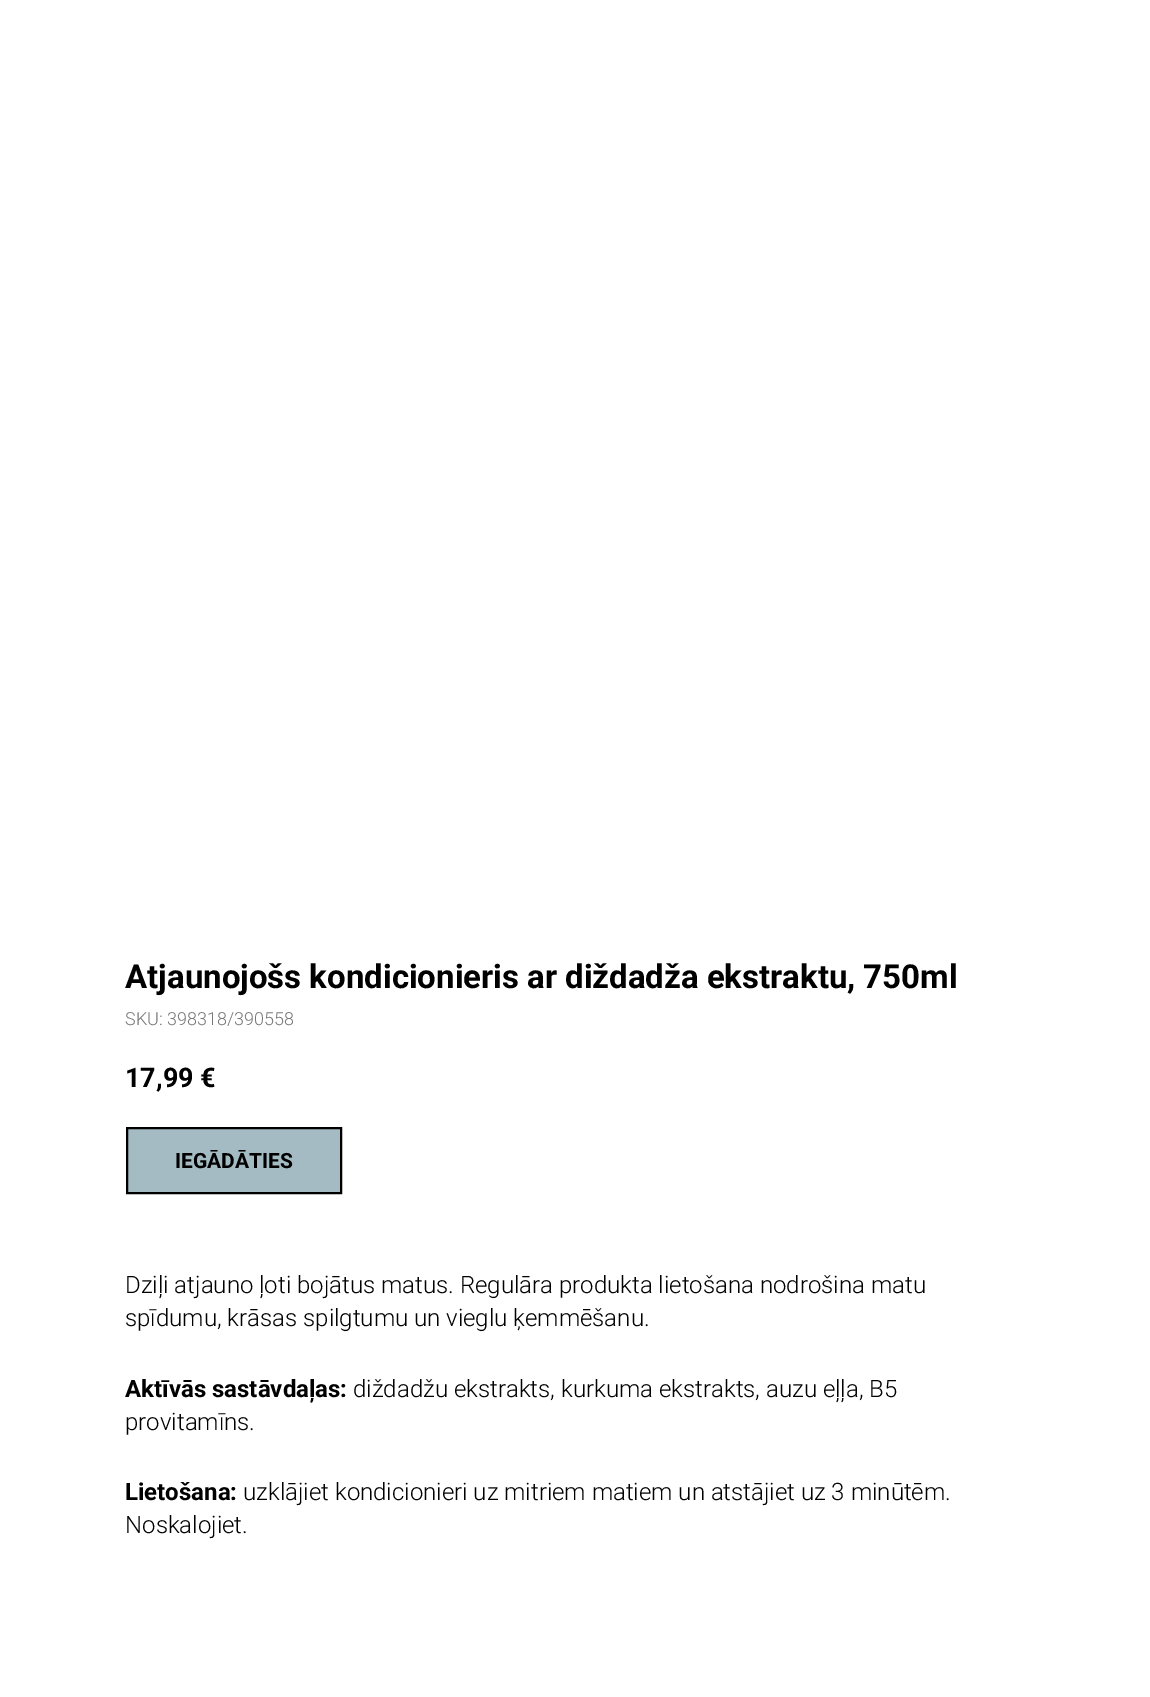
%!PS
<< /PageSize [1150 1697] >> setpagedevice
/rgb { 3 { 255 div 3 1 roll } repeat setrgbcolor } def
/font { [ exch dup neg 0 0 3 -1 roll 0 0 ] selectfont } def
/text { moveto show } def
0 1697 translate 1 -1 scale
4 setmiterlimit
255 255 255 rgb
0 0 1150 1697 rectfill
164 187 195 rgb
127 1128 moveto 214 0 rlineto 0 65 rlineto -214 0 rlineto closepath gsave fill grestore
0 0 0 rgb
2 setlinewidth
stroke
/Roboto-Bold 33 font
(Atjaunojošs kondicionieris ar diždadža ekstraktu, 750ml) 125 988 text
/Roboto-Light 18 font
119 119 119 rgb
(SKU: 398318/390558) 125 1025 text
/Roboto-Bold 27 font
0 0 0 rgb
(17,99 €) 125 1087 text
/Roboto-Bold 21 font
(IEGĀDĀTIES) 175 1168 text
/Roboto-Light 24 font
(Dziļi atjauno ļoti bojātus matus. Regulāra produkta lietošana nodrošina matu) 125 1293 text
(spīdumu, krāsas spilgtumu un vieglu ķemmēšanu.) 125 1326 text
/Roboto-Bold 24 font
(Aktīvās sastāvdaļas:) 125 1397 text
/Roboto-Light 24 font
(diždadžu ekstrakts, kurkuma ekstrakts, auzu eļļa, B5) 353 1397 text
(provitamīns.) 125 1430 text
/Roboto-Bold 24 font
(Lietošana:) 125 1500 text
/Roboto-Light 24 font
(uzklājiet kondicionieri uz mitriem matiem un atstājiet uz 3 minūtēm.) 243 1500 text
(Noskalojiet.) 125 1533 text
showpage
